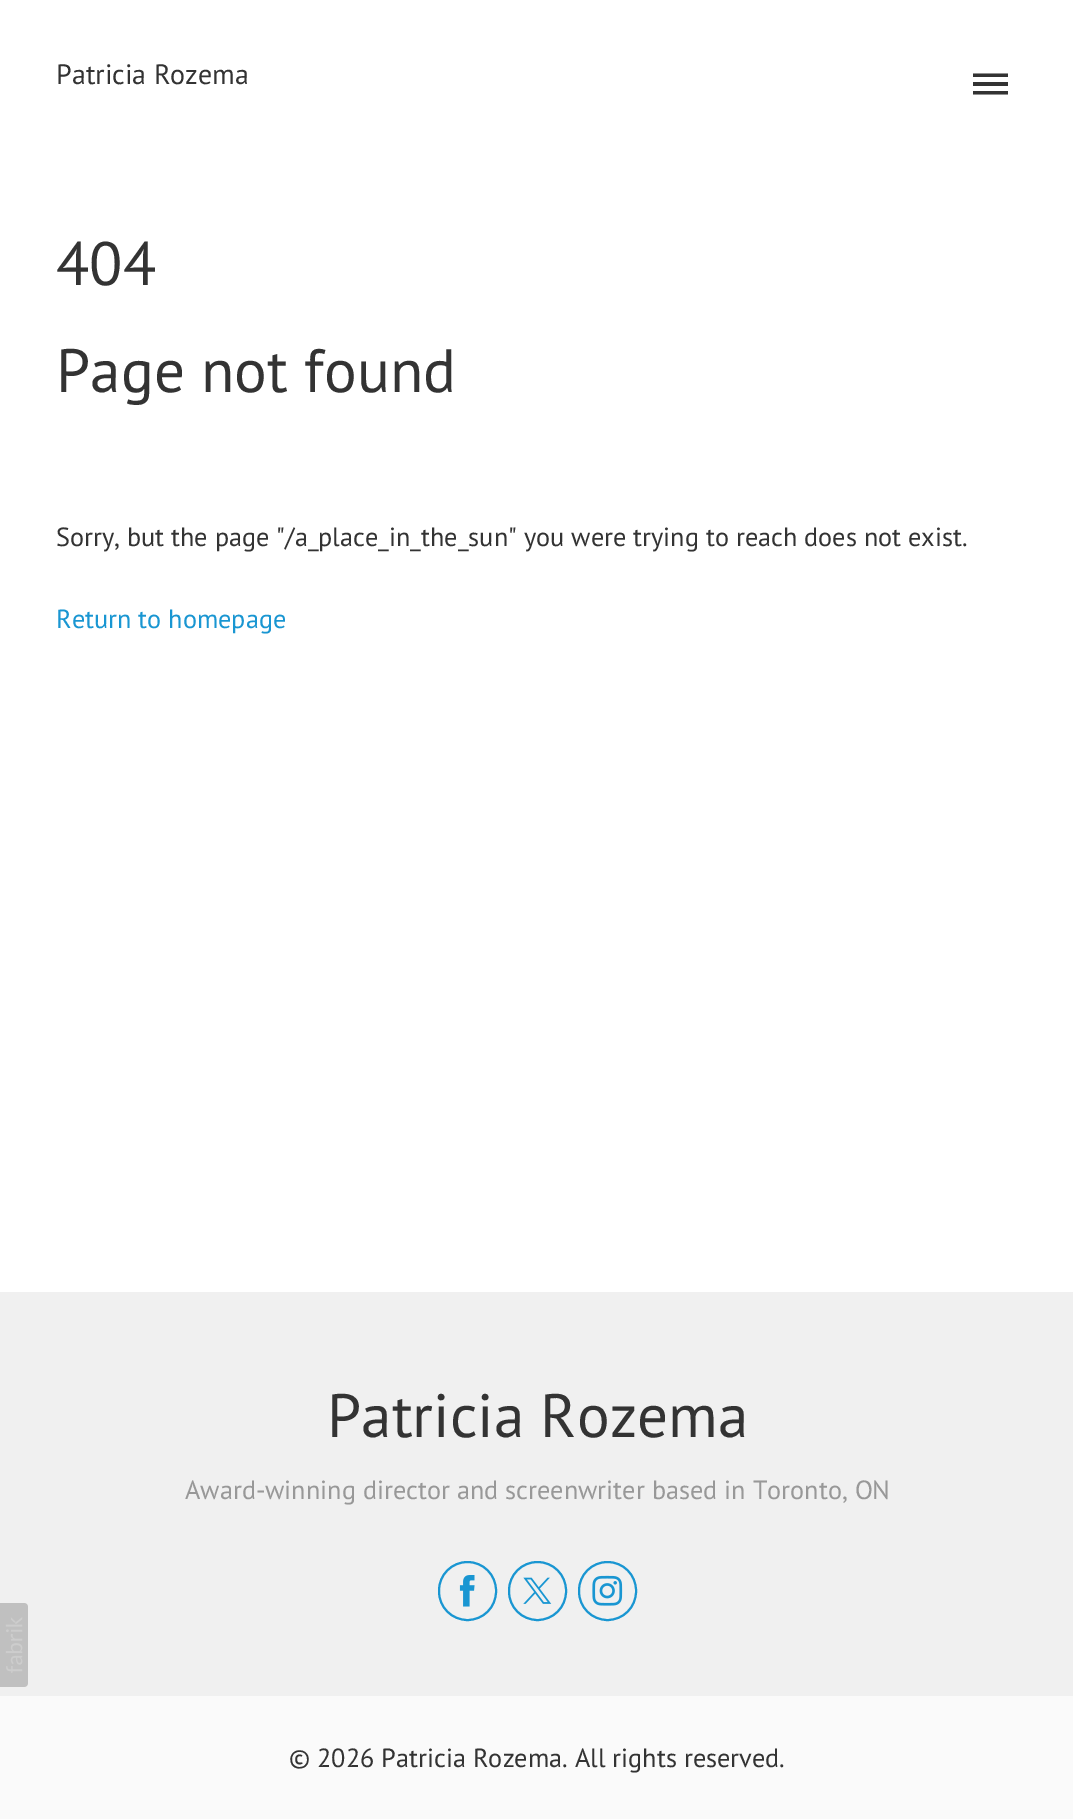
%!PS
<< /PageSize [1073 1819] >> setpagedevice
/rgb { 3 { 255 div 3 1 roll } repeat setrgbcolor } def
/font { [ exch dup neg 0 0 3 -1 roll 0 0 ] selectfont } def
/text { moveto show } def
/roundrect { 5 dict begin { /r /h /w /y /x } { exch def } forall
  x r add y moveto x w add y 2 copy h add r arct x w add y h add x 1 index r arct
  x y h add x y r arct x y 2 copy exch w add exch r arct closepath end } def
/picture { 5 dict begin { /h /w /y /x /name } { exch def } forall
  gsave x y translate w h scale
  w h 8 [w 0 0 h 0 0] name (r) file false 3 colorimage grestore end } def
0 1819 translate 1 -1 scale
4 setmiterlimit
255 255 255 rgb
0 0 1073 1819 rectfill
240 240 240 rgb
0 1292 1073 404 rectfill
(img_01.rgb) 0 1603 28 84 picture
51 51 51 rgb
973 91 moveto 35 0 rlineto 0 3.5 rlineto -35 0 rlineto closepath 973 82 moveto 35 0 rlineto 0 4 rlineto -35 0 rlineto closepath 973 73.5 moveto 35 0 rlineto 0 3.5 rlineto -35 0 rlineto closepath fill
25 150 210 rgb
2 setlinewidth
439 1562 57 58 28.5 roundrect stroke
(img_02.rgb) 459 1575 16 32 picture
509 1562 57 58 28.5 roundrect stroke
(img_03.rgb) 523 1577 29 27 picture
579 1562 57 58 28.5 roundrect stroke
(img_04.rgb) 592 1575 31 31 picture
250 250 250 rgb
0 1696 1073 123 rectfill
/PTSans-Regular 28 font
51 51 51 rgb
(Patricia Rozema) 56 84 text
/PTSans-Regular 61.25 font
(404) 56 285 text
(Page not found) 56 392 text
/PTSans-Regular 26.25 font
(Sorry, but the page "/a_place_in_the_sun" you were trying to reach does not exist.) 56 546 text
25 150 210 rgb
(Return to homepage) 56 628 text
/PTSans-Regular 61.25 font
51 51 51 rgb
(Patricia Rozema) 327 1437 text
/PTSans-Regular 26.25 font
152 152 152 rgb
(Award-winning director and screenwriter based in Toronto, ON) 185 1499 text
51 51 51 rgb
(© 2026 Patricia Rozema. All rights reserved.) 289 1767 text
showpage
